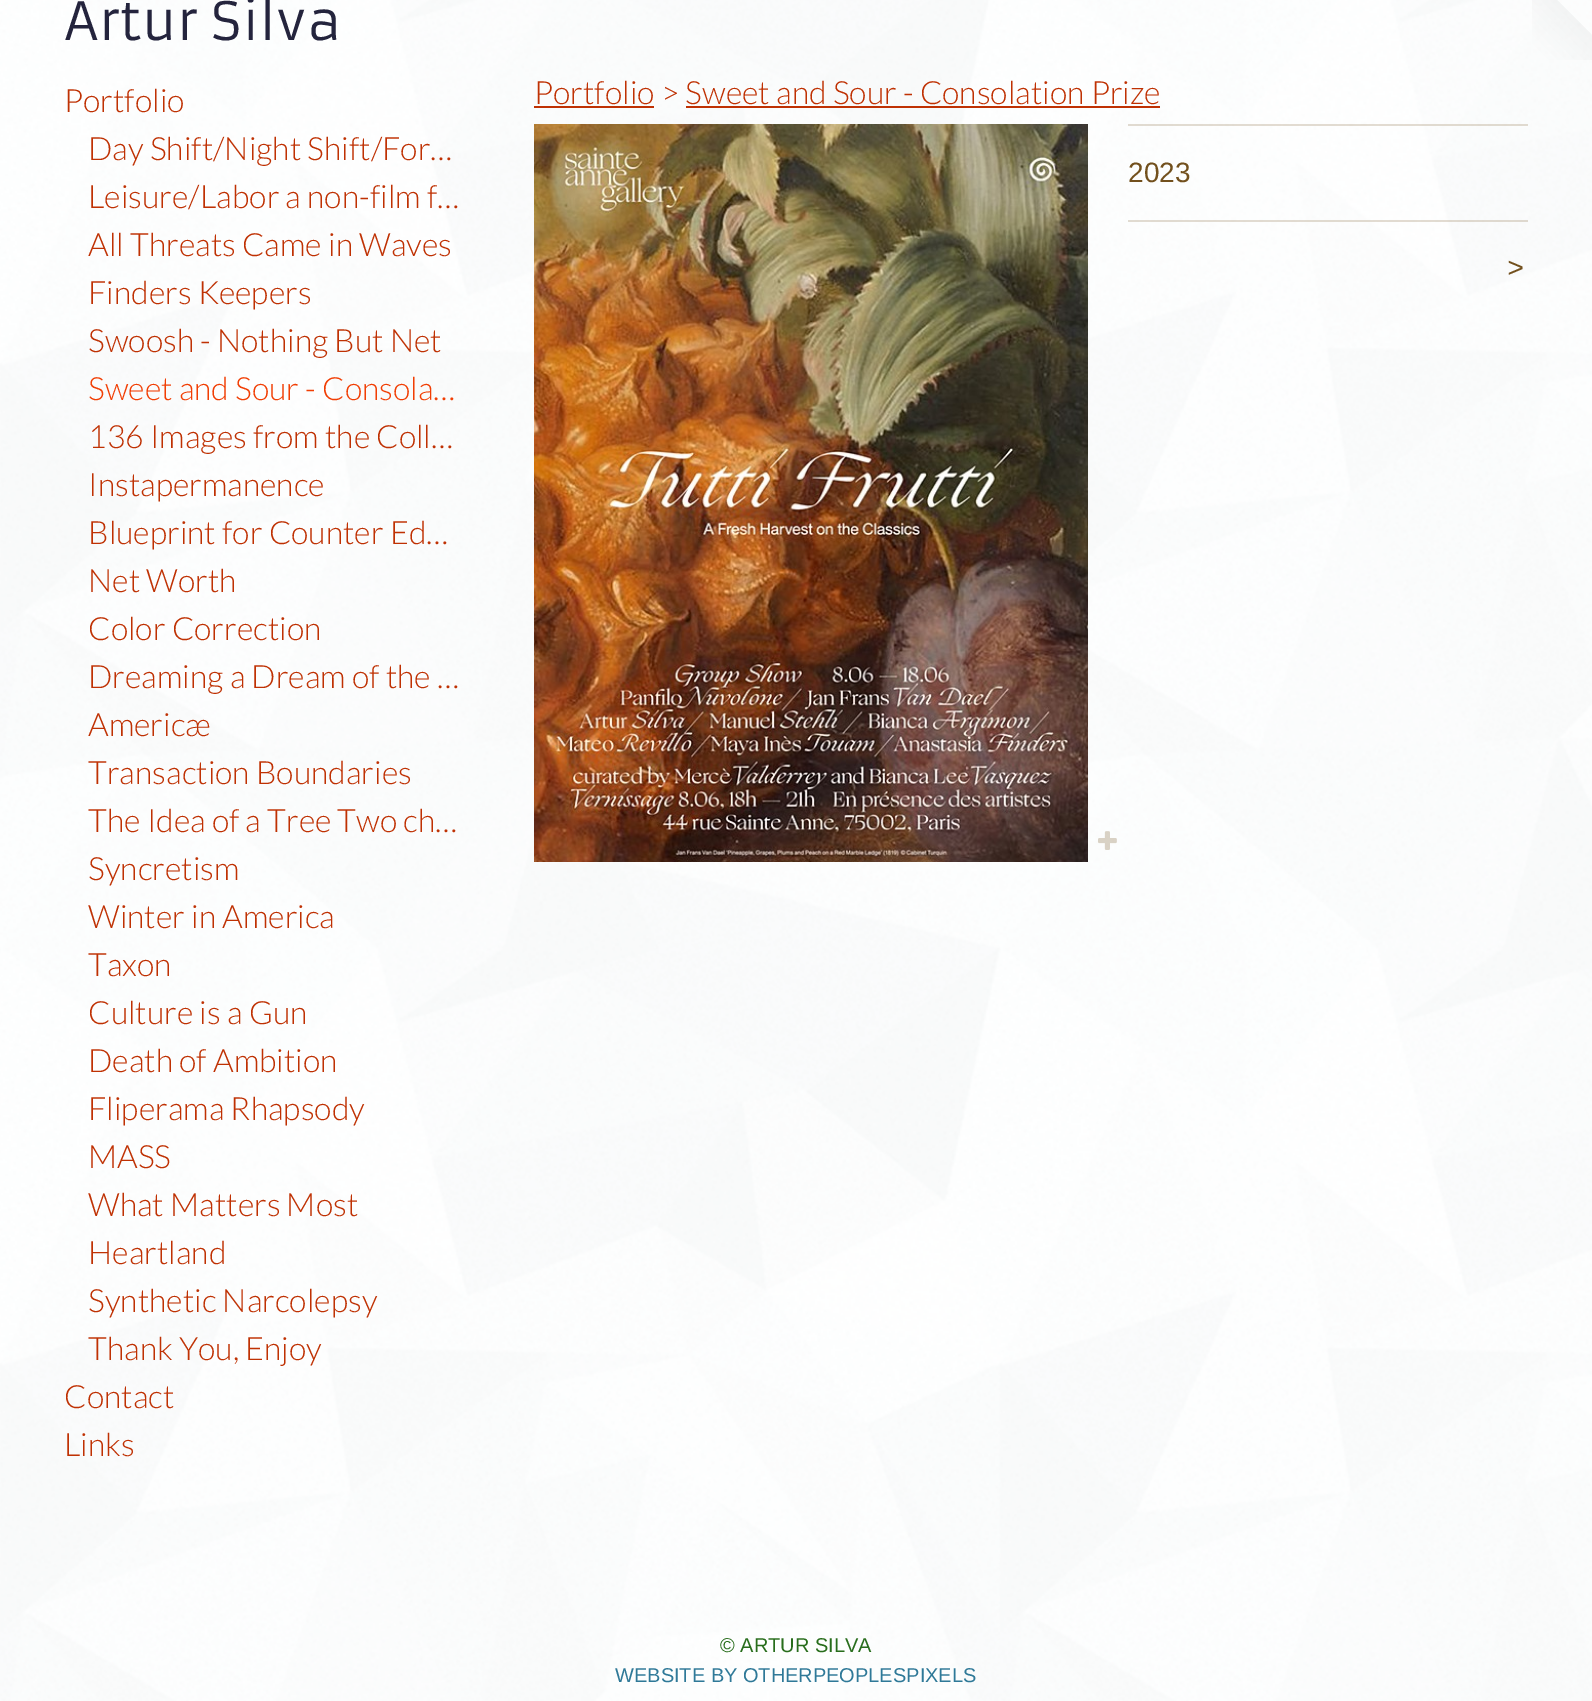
%!PS
<< /PageSize [1592 1701] /PageUsesTransparency true >> setpagedevice
/rgb { 3 { 255 div 3 1 roll } repeat setrgbcolor } def
/font { [ exch dup neg 0 0 3 -1 roll 0 0 ] selectfont } def
/text { moveto show } def
/alpha { dup .setfillconstantalpha .setstrokeconstantalpha } def
/picture { 5 dict begin { /h /w /y /x /name } { exch def } forall
  gsave x y translate w h scale
  w h 8 [w 0 0 h 0 0] name (r) file false 3 colorimage grestore end } def
0 .pushpdf14devicefilter
0 1701 translate 1 -1 scale
4 setmiterlimit
255 255 255 rgb
0 0 1592 1701 rectfill
(img_01.rgb) 0 0 1592 1701 picture
(img_02.rgb) 1532 0 60 60 picture
191 49 3 rgb
534 106 120 2 rectfill
686 106 474 2 rectfill
(img_03.rgb) 534 124 554 738 picture
(img_04.rgb) 1098 831 19 19 picture
0.2 alpha
114 80 29 rgb
1128 124 400 2 rectfill
1128 220 400 2 rectfill
/Armata-Regular 52 font
1 alpha
36 36 61 rgb
(Artur Silva) 64 40 text
/Lato-Light 32 font
191 49 3 rgb
(Portfolio) 64 112 text
(Day Shift/Night Shift/For…) 88 160 text
(Leisure/Labor a non-film f…) 88 208 text
(All Threats Came in Waves) 88 256 text
(Finders Keepers) 88 304 text
(Swoosh - Nothing But Net) 88 352 text
241 62 4 rgb
(Sweet and Sour - Consola…) 88 400 text
191 49 3 rgb
(136 Images from the Coll…) 88 448 text
(Instapermanence) 88 496 text
(Blueprint for Counter Ed…) 88 544 text
(Net Worth) 88 592 text
(Color Correction) 88 640 text
(Dreaming a Dream of the …) 88 688 text
(Americæ) 88 736 text
(Transaction Boundaries) 88 784 text
(The Idea of a Tree Two ch…) 88 832 text
(Syncretism) 88 880 text
(Winter in America) 88 928 text
(Taxon) 88 976 text
(Culture is a Gun) 88 1024 text
(Death of Ambition) 88 1072 text
(Fliperama Rhapsody) 88 1120 text
(MASS) 88 1168 text
(What Matters Most) 88 1216 text
(Heartland) 88 1264 text
(Synthetic Narcolepsy) 88 1312 text
(Thank You, Enjoy) 88 1360 text
(Contact) 64 1408 text
(Links) 64 1456 text
(Portfolio > Sweet and Sour - Consolation Prize) 534 104 text
/LiberationSans-Regular 28 font
114 80 29 rgb
(2023) 1128 182 text
/LiberationSans-Italic 28 font
1507 277 moveto 2 0 (>) ashow
/LiberationSans-Regular 20 font
40 109 28 rgb
(© ARTUR SILVA) 720 1652 text
47 121 152 rgb
(WEBSITE BY OTHERPEOPLESPIXELS) 615 1682 text
.poppdf14devicefilter showpage
